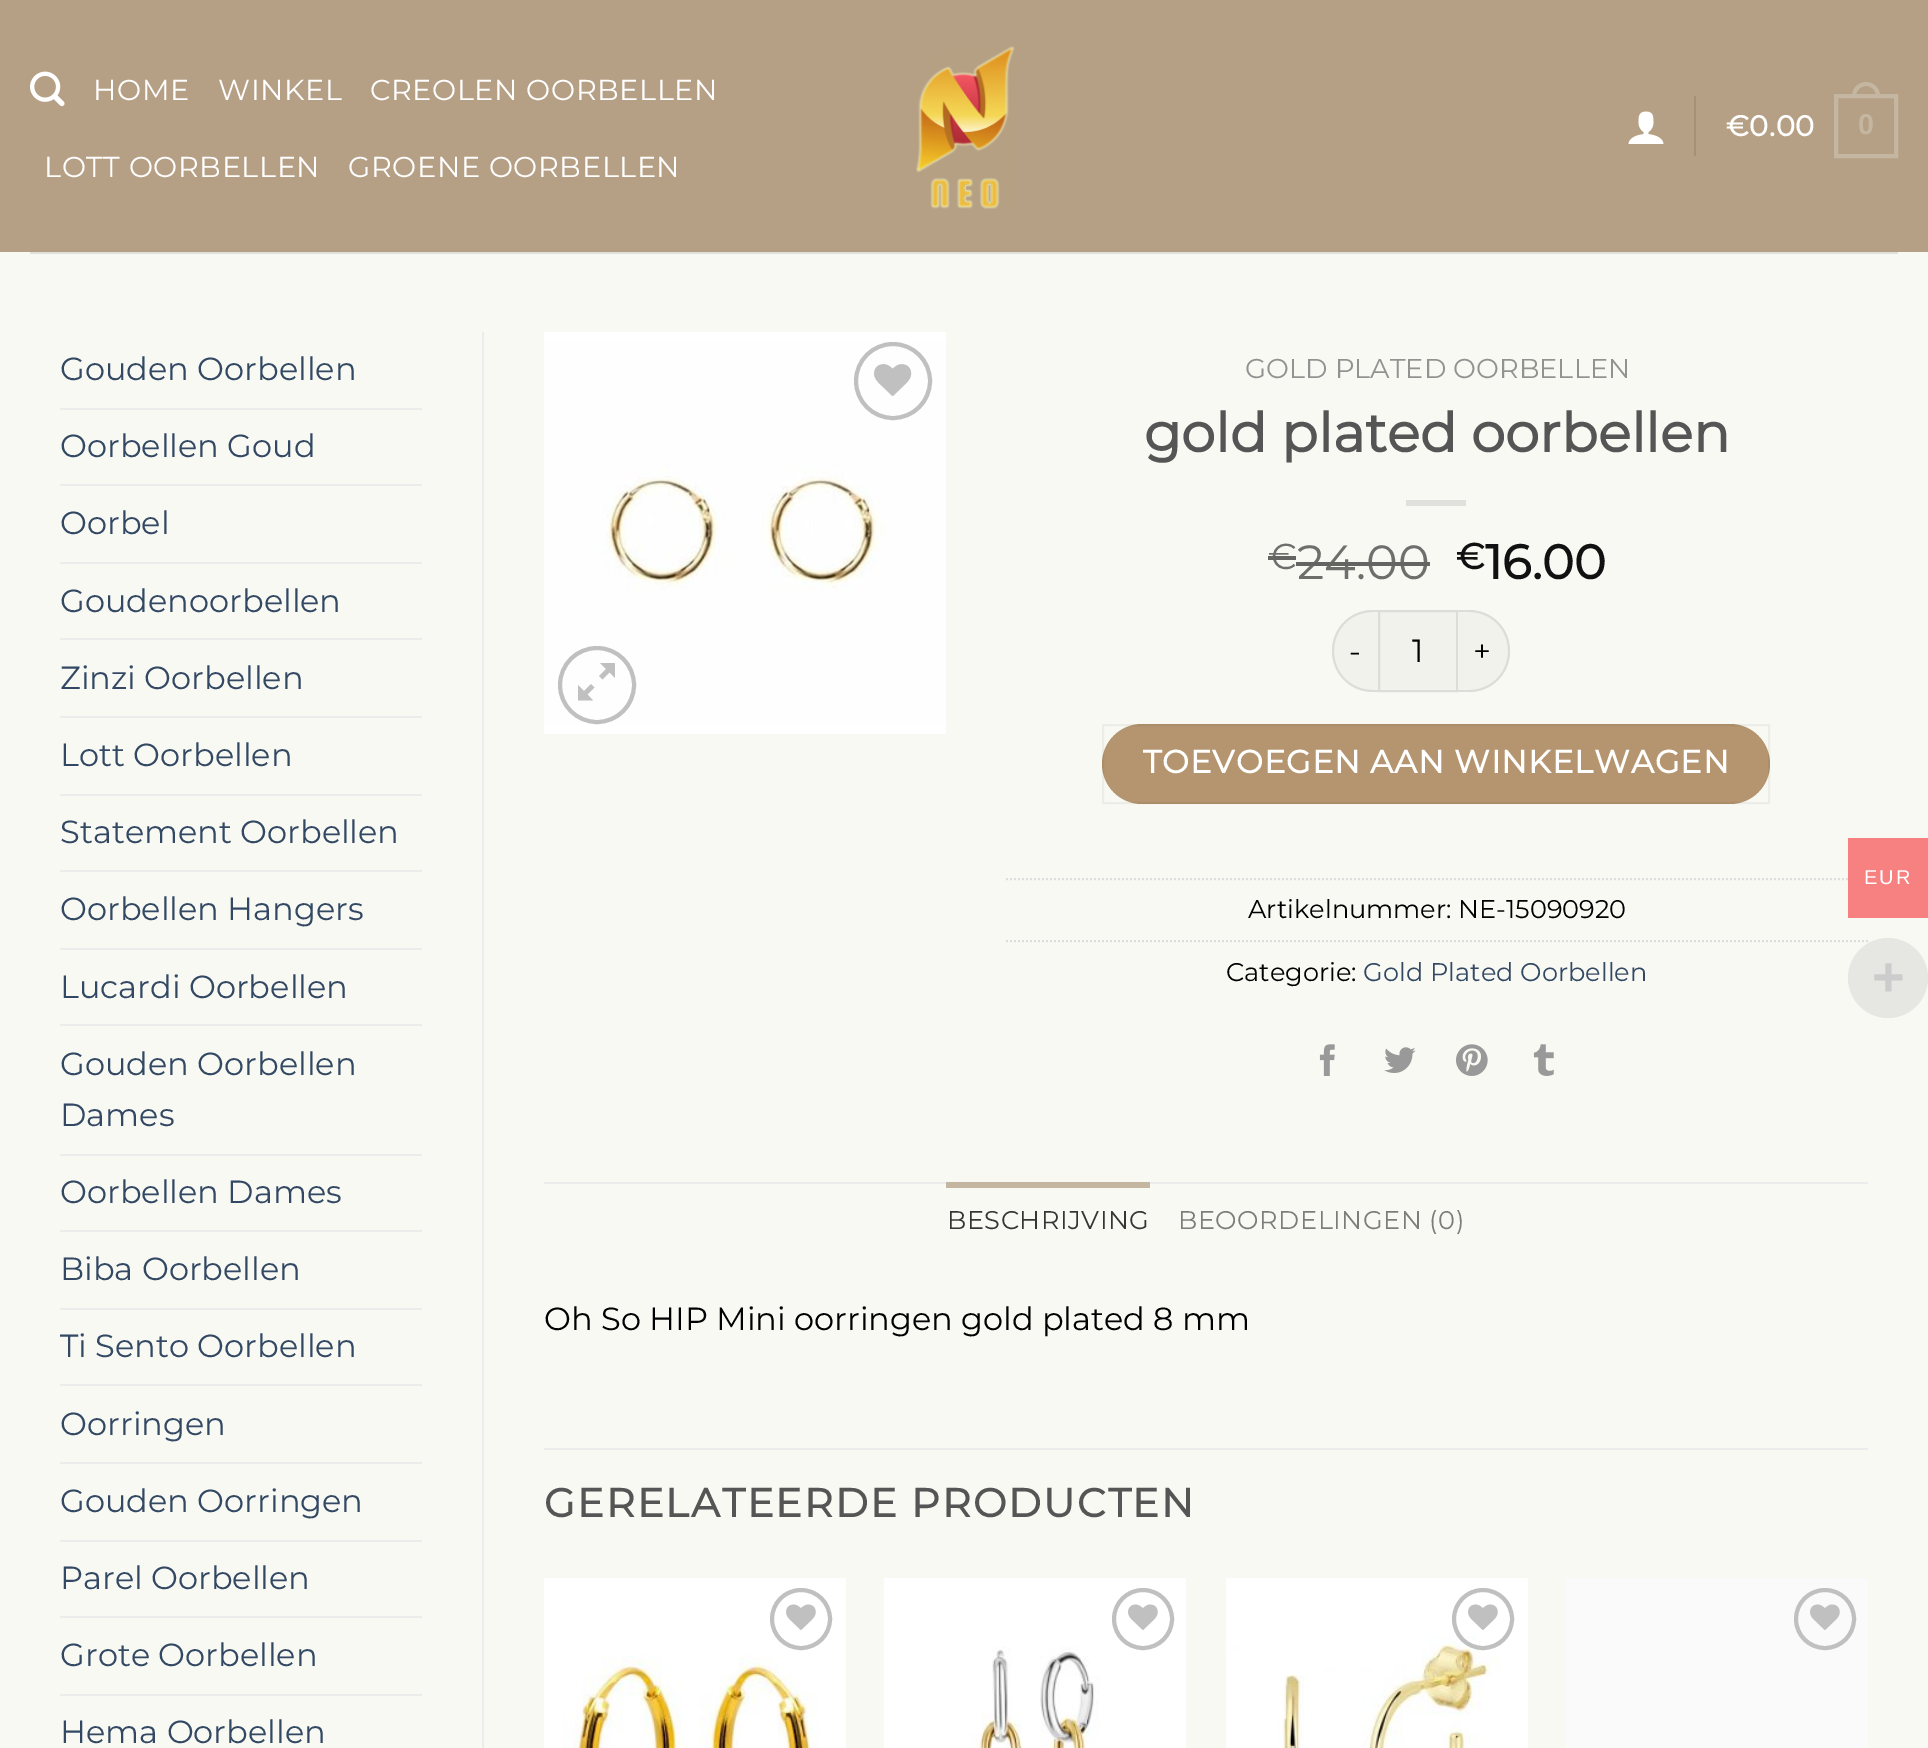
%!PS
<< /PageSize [1928 1748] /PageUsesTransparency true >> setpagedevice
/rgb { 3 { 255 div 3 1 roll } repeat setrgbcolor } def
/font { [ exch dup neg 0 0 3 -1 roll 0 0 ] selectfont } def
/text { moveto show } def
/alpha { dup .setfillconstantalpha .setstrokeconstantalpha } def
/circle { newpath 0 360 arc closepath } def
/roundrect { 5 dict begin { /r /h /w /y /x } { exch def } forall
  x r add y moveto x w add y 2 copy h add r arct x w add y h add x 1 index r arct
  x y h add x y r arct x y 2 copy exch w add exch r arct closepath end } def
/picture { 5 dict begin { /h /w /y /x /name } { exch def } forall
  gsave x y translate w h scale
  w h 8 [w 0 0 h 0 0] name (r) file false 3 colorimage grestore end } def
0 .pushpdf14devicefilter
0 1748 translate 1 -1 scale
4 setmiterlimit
249 249 244 rgb
0 0 1928 1748 rectfill
182 160 133 rgb
0 0 1928 252 rectfill
(img_01.rgb) 30 71 35 36 picture
(img_02.rgb) 916 46 99 163 picture
(img_03.rgb) 1628 111 36 33 picture
164 144 120 rgb
1694 96 2 60 rectfill
196 182 160 rgb
4 setlinewidth
1836 96 60 60 rectstroke
1866 82 moveto 7.5 0 14 6.5 14 14 rcurveto 0 2 rlineto -28 0 rlineto 0 -2 rlineto 0 -7.5 6.5 -14 14 -14 rcurveto closepath 1866 86 moveto 5.5 0 10 4.5 10 10 rcurveto 0 2 rlineto -20 0 rlineto 0 -2 rlineto 0 -5.5 4.5 -10 10 -10 rcurveto closepath eofill
224 224 220 rgb
30 252 1868 2 rectfill
236 236 236 rgb
60 408 362 2 rectfill
60 484 362 2 rectfill
60 562 362 2 rectfill
60 638 362 2 rectfill
60 716 362 2 rectfill
60 794 362 2 rectfill
60 870 362 2 rectfill
60 948 362 2 rectfill
60 1024 362 2 rectfill
60 1154 362 2 rectfill
60 1230 362 2 rectfill
60 1308 362 2 rectfill
60 1384 362 2 rectfill
60 1462 362 2 rectfill
60 1540 362 2 rectfill
60 1616 362 2 rectfill
60 1694 362 2 rectfill
482 332 2 1416 rectfill
(img_04.rgb) 544 332 402 402 picture
192 192 192 rgb
893 381 37 circle stroke
(img_05.rgb) 874 364 38 32 picture
597 685 37 circle stroke
615 663 moveto 0 15 rlineto -5.5 -5.5 rlineto -7 7 rlineto -3.5 -3.5 rlineto 7 -7 rlineto -6 -6 rlineto closepath 594.5 687.5 moveto -7 7 rlineto 5.5 6 rlineto -15 0 rlineto 0 -15.5 rlineto 6 6 rlineto 7 -7 rlineto closepath fill
224 224 220 rgb
1406 500 60 6 rectfill
242 242 237 rgb
1373 610 moveto 5 0 rlineto 0 82 rlineto -5 0 rlineto -22.5 0 -41 -18.5 -41 -41 rcurveto 0 -22.5 18.5 -41 41 -41 rcurveto closepath fill
0.09 alpha
0 0 0 rgb
1373 610 moveto 5 0 rlineto 0 82 rlineto -5 0 rlineto -23 0 -41 -18 -41 -41 rcurveto 0 -23 18 -41 41 -41 rcurveto closepath 1373 612 moveto 5 0 rlineto 0 78 rlineto -5 0 rlineto -22 0 -39 -17 -39 -39 rcurveto 0 -22 17 -39 39 -39 rcurveto closepath eofill
1 alpha
242 242 237 rgb
1379 611 moveto 78 0 rlineto 0 80 rlineto -78 0 rlineto closepath gsave fill grestore
220 220 216 rgb
2 setlinewidth
stroke
242 242 237 rgb
1458 610 moveto 11 0 rlineto 22.5 0 41 18.5 41 41 rcurveto 0 22.5 -18.5 41 -41 41 rcurveto -11 0 rlineto closepath fill
0.09 alpha
0 0 0 rgb
1458 610 moveto 11 0 rlineto 23 0 41 18 41 41 rcurveto 0 23 -18 41 -41 41 rcurveto -11 0 rlineto closepath 1458 612 moveto 11 0 rlineto 22 0 39 17 39 39 rcurveto 0 22 -17 39 -39 39 rcurveto -11 0 rlineto closepath eofill
1 alpha
180 149 112 rgb
1102 724 668 80 40 roundrect fill
0.05 alpha
0 0 0 rgb
1103 725 666 78 rectstroke
1 alpha
221 221 221 rgb
[2 2] 0 setdash
1006 879 moveto 862 0 rlineto stroke
1006 941 moveto 862 0 rlineto stroke
(img_06.rgb) 1319 1044 16 32 picture
(img_07.rgb) 1384 1047 32 26 picture
(img_08.rgb) 1456 1044 32 32 picture
(img_09.rgb) 1533 1044 21 32 picture
236 236 236 rgb
544 1182 1324 2 rectfill
196 182 160 rgb
946 1182 204 6 rectfill
236 236 236 rgb
544 1448 1324 2 rectfill
(img_10.rgb) 544 1578 302 170 picture
192 192 192 rgb
4 setlinewidth
[] 0 setdash
801 1619 29 circle stroke
(img_11.rgb) 786 1604 30 26 picture
(img_12.rgb) 884 1578 302 170 picture
1143 1619 29 circle stroke
(img_11.rgb) 1128 1604 30 26 picture
(img_13.rgb) 1226 1578 302 170 picture
1483 1619 29 circle stroke
(img_11.rgb) 1468 1604 30 26 picture
250 250 250 rgb
1566 1578 302 170 rectfill
192 192 192 rgb
1825 1619 29 circle stroke
(img_14.rgb) 1810 1604 30 26 picture
247 128 128 rgb
1848 838 80 80 rectfill
230 230 226 rgb
1888 978 40 circle fill
/Montserrat-Regular 28.75 font
255 255 255 rgb
93 100 moveto 0.6 0 (HOME) ashow
218 100 moveto 0.6 0 (WINKEL) ashow
370 100 moveto 0.6 0 (CREOLEN OORBELLEN) ashow
44 177 moveto 0.6 0 (LOTT OORBELLEN) ashow
348 177 moveto 0.6 0 (GROENE OORBELLEN) ashow
/Montserrat-Bold 28.75 font
1726 136 moveto 0.6 0 (€0.00) ashow
/LiberationSans-Bold 28.75 font
196 182 160 rgb
1858 134 moveto 0.6 0 (0) ashow
/Montserrat-Regular 32 font
51 72 98 rgb
(Gouden Oorbellen) 60 380 text
(Oorbellen Goud) 60 457 text
(Oorbel) 60 534 text
(Goudenoorbellen) 60 612 text
(Zinzi Oorbellen) 60 689 text
(Lott Oorbellen) 60 766 text
(Statement Oorbellen) 60 843 text
(Oorbellen Hangers) 60 920 text
(Lucardi Oorbellen) 60 998 text
(Gouden Oorbellen) 60 1075 text
(Dames) 60 1126 text
(Oorbellen Dames) 60 1203 text
(Biba Oorbellen) 60 1280 text
(Ti Sento Oorbellen) 60 1357 text
(Oorringen) 60 1435 text
(Gouden Oorringen) 60 1512 text
(Parel Oorbellen) 60 1589 text
(Grote Oorbellen) 60 1666 text
(Hema Oorbellen) 60 1743 text
/Montserrat-Regular 27.25 font
146 146 145 rgb
(GOLD PLATED OORBELLEN) 1245 378 text
/Montserrat-Bold 54.4 font
85 85 85 rgb
(gold plated oorbellen) 1144 452 text
/Montserrat-Regular 36 font
110 110 108 rgb
(€) 1268 569 text
100 100 98 rgb
1268 556 28 4 rectfill
/Montserrat-Regular 48 font
110 110 108 rgb
(24.00) 1297 579 text
100 100 98 rgb
1296 562 134 4 rectfill
/Montserrat-Bold 36 font
17 17 17 rgb
(€) 1456 569 text
/Montserrat-Bold 48 font
(16.00) 1485 579 text
/Montserrat-Regular 31 font
0 0 0 rgb
1349 662 moveto 1 0 (-) ashow
/Montserrat-Regular 32 font
(1) 1412 662 text
/Montserrat-Regular 31 font
1473 662 moveto 1 0 (+) ashow
/Montserrat-Bold 32 font
255 255 255 rgb
1143 773 moveto 0.95 0 (TOEVOEGEN AAN WINKELWAGEN) ashow
/Montserrat-Regular 25.6 font
0 0 0 rgb
(Artikelnummer: NE-15090920) 1248 918 text
(Categorie:) 1226 981 text
51 72 98 rgb
(Gold Plated Oorbellen) 1363 981 text
53 53 52 rgb
947 1229 moveto 0.5 0 (BESCHRIJVING) ashow
124 124 123 rgb
1178 1229 moveto 0.5 0 (BEOORDELINGEN \(0\)) ashow
/Montserrat-Regular 32 font
0 0 0 rgb
(Oh So HIP Mini oorringen gold plated 8 mm) 544 1330 text
/Montserrat-Bold 40 font
85 85 85 rgb
544 1517 moveto 2 0 (GERELATEERDE PRODUCTEN) ashow
/LiberationSans-Regular 20 font
255 255 255 rgb
1864 884 moveto 2 0 (EUR) ashow
/LiberationSans-Bold 56 font
204 204 204 rgb
(+) 1872 996 text
.poppdf14devicefilter showpage
